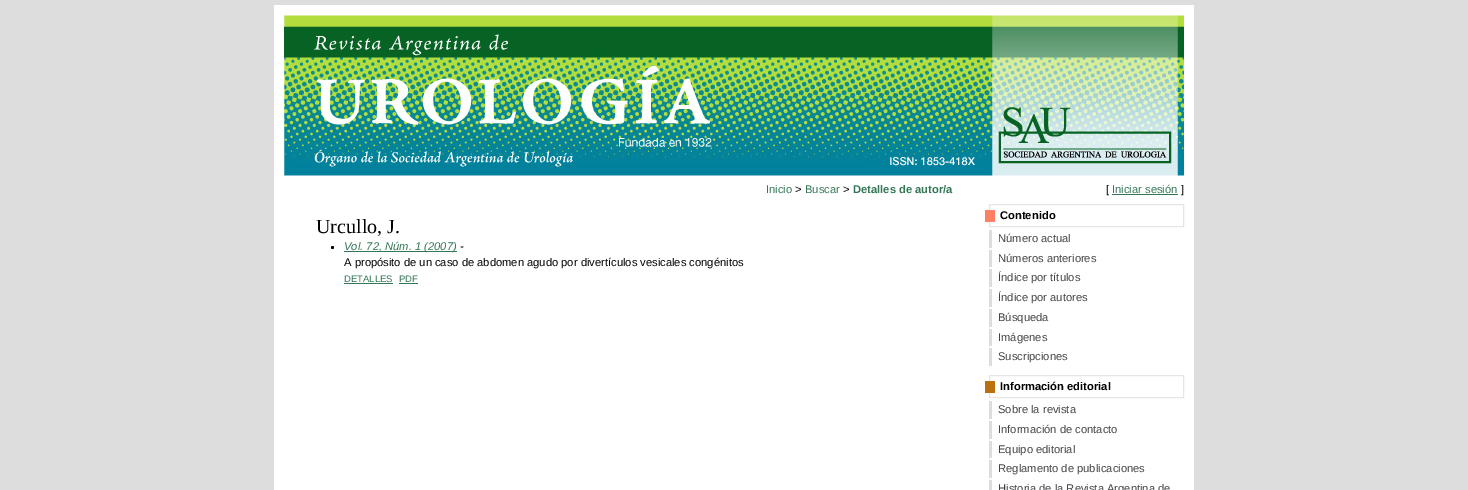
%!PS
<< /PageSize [1468 490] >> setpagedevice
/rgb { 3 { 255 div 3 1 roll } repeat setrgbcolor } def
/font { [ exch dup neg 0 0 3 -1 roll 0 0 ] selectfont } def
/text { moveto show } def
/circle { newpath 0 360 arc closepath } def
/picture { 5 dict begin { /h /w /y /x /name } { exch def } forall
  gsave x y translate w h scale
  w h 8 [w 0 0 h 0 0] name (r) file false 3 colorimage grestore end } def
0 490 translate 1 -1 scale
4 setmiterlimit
221 221 221 rgb
0 0 1468 490 rectfill
255 255 255 rgb
274 5 920 485 rectfill
(img_01.rgb) 284 15 900 161 picture
0 0 0 rgb
332.5 247.5 1.5 circle fill
51 119 85 rgb
344 251 113 1 rectfill
344 283 49 1 rectfill
399 283 19 1 rectfill
1112 194 66 1 rectfill
230 230 230 rgb
989.5 204.5 194 22 rectstroke
255 127 100 rgb
985 210 10 12 rectfill
221 221 221 rgb
989 230 3 18 rectfill
989 250 3 17 rectfill
989 269 3 18 rectfill
989 289 3 18 rectfill
989 309 3 18 rectfill
989 329 3 17 rectfill
989 348 3 18 rectfill
230 230 230 rgb
989.5 375.5 194 22 rectstroke
185 113 16 rgb
985 381 10 12 rectfill
221 221 221 rgb
989 401 3 18 rectfill
989 421 3 18 rectfill
989 441 3 17 rectfill
989 460 3 18 rectfill
989 480 3 10 rectfill
/LiberationSans-Regular 11.2 font
51 119 85 rgb
(Inicio) 766 193 text
0 0 0 rgb
(>) 795 193 text
51 119 85 rgb
(Buscar) 805 193 text
0 0 0 rgb
(>) 843 193 text
/LiberationSans-Bold 11.2 font
51 119 85 rgb
(Detalles de autor/a) 853 193 text
/LiberationSerif-Regular 20 font
0 0 0 rgb
(Urcullo, J.) 316 233 text
/LiberationSans-Italic 11.2 font
51 119 85 rgb
(Vol. 72, Núm. 1 \(2007\)) 344 250 text
0 0 0 rgb
(-) 460 250 text
/LiberationSans-Regular 11.2 font
(A propósito de un caso de abdomen agudo por divertículos vesicales congénitos) 344 266 text
/LiberationSans-Regular 9.5 font
51 119 85 rgb
(DETALLES) 344 282 text
(PDF) 399 282 text
/LiberationSans-Regular 11.2 font
0 0 0 rgb
([) 1106 193 text
51 119 85 rgb
(Iniciar sesión) 1112 193 text
0 0 0 rgb
(]) 1181 193 text
/LiberationSans-Bold 11.2 font
(Contenido) 1000 219 text
/LiberationSans-Regular 11.2 font
68 68 68 rgb
(Número actual) 998 242 text
(Números anteriores) 998 262 text
(Índice por títulos) 998 281 text
(Índice por autores) 998 301 text
(Búsqueda) 998 321 text
(Imágenes) 998 341 text
(Suscripciones) 998 360 text
/LiberationSans-Bold 11.2 font
0 0 0 rgb
(Información editorial) 1000 390 text
/LiberationSans-Regular 11.2 font
68 68 68 rgb
(Sobre la revista) 998 413 text
(Información de contacto) 998 433 text
(Equipo editorial) 998 453 text
(Reglamento de publicaciones) 998 472 text
(Historia de la Revista Argentina de) 998 492 text
showpage
